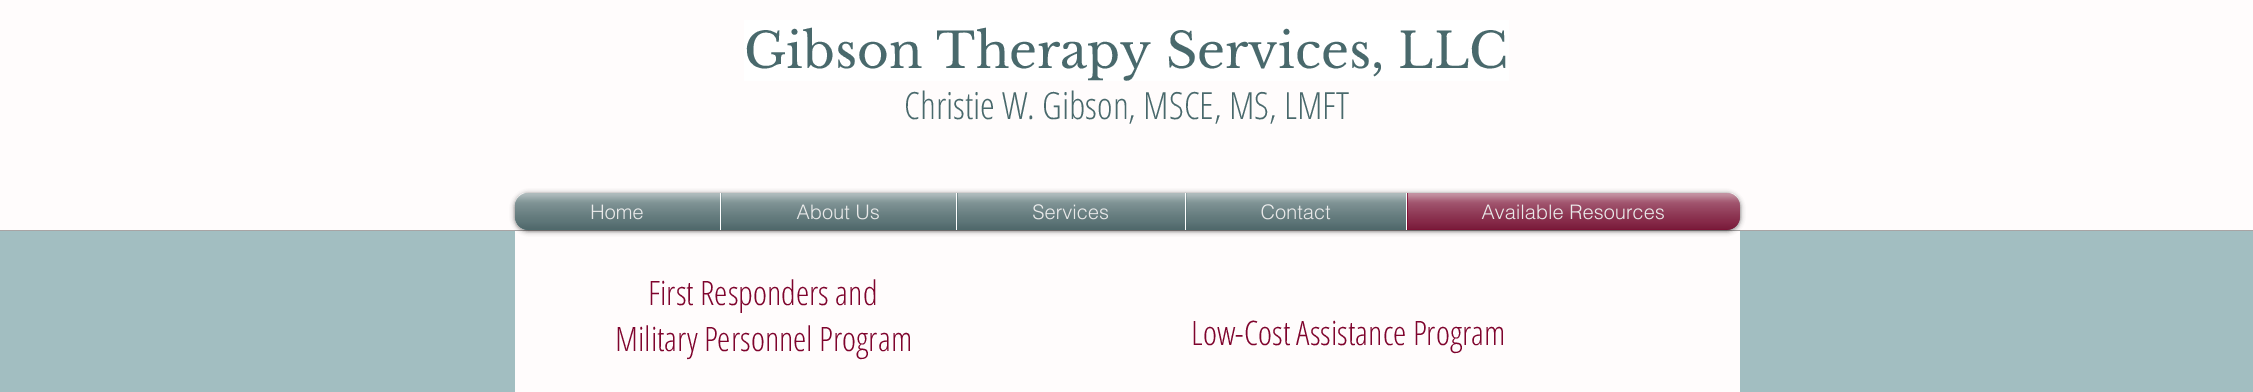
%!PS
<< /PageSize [2253 392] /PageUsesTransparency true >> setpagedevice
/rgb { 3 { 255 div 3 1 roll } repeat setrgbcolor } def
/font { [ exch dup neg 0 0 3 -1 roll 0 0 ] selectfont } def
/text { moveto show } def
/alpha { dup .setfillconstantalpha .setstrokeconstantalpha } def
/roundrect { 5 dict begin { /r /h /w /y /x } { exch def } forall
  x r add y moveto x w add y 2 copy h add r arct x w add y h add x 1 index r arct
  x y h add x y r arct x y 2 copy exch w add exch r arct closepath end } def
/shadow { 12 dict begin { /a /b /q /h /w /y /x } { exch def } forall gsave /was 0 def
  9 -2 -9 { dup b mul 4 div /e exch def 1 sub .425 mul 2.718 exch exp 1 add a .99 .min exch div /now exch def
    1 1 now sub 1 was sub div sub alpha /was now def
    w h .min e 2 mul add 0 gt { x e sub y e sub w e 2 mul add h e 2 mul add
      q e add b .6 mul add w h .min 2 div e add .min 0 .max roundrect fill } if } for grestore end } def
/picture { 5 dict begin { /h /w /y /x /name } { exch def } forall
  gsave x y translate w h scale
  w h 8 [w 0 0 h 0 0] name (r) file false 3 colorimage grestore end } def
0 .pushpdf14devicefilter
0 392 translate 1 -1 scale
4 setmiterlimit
162 190 193 rgb
0 0 2253 392 rectfill
255 252 252 rgb
0 0 2253 230 rectfill
168 164 164 rgb
0 230 2253 1 rectfill
255 255 255 rgb
744 20 765 61 rectfill
255 252 252 rgb
515 231 1225 161 rectfill
0 0 0 rgb
515 194 1225 37 13 2.5 0.6 shadow
(img_01.rgb) 515 193 1225 37 picture
(img_02.rgb) 515 193 1225 37 picture
73 105 108 rgb
528 193 moveto 192 0 rlineto 0 37 rlineto -192 0 rlineto -7 0 -13 -6 -13 -13 rcurveto 0 -11 rlineto 0 -7 6 -13 13 -13 rcurveto closepath fill
721 193 235 37 rectfill
255 255 255 rgb
720 193 1 37 rectfill
73 105 108 rgb
957 193 228 37 rectfill
255 255 255 rgb
956 193 1 37 rectfill
73 105 108 rgb
1186 193 220 37 rectfill
255 255 255 rgb
1185 193 1 37 rectfill
127 4 45 rgb
1406 193 moveto 321 0 rlineto 7 0 13 6 13 13 rcurveto 0 11 rlineto 0 7 -6 13 -13 13 rcurveto -321 0 rlineto closepath fill
255 255 255 rgb
1406 193 1 37 rectfill
/LibreBaskerville-Regular 48.75 font
73 105 108 rgb
(Gibson Therapy Services, LLC) 744 68 text
/OpenSansCondensed-Light 37.5 font
(Christie W. Gibson, MSCE, MS, LMFT) 904 119 text
/helvetica-Light 20 font
255 255 255 rgb
(Home) 590 219 text
(img_03.rgb) 515 193 205 37 picture
(img_04.rgb) 515 193 205 37 picture
(About Us) 796 219 text
(img_05.rgb) 721 193 235 37 picture
(img_06.rgb) 721 193 235 37 picture
(Services) 1032 219 text
(img_07.rgb) 957 193 228 37 picture
(img_08.rgb) 957 193 228 37 picture
(Contact) 1261 219 text
(img_09.rgb) 1186 193 220 37 picture
(img_10.rgb) 1186 193 220 37 picture
(Available Resources) 1481 219 text
(img_11.rgb) 1407 193 333 37 picture
(img_12.rgb) 1407 193 333 37 picture
/OpenSansCondensed-Light 33.75 font
127 4 45 rgb
(First Responders and) 648 305 text
(Military Personnel Program) 615 351 text
(Low-Cost Assistance Program) 1191 345 text
.poppdf14devicefilter showpage
